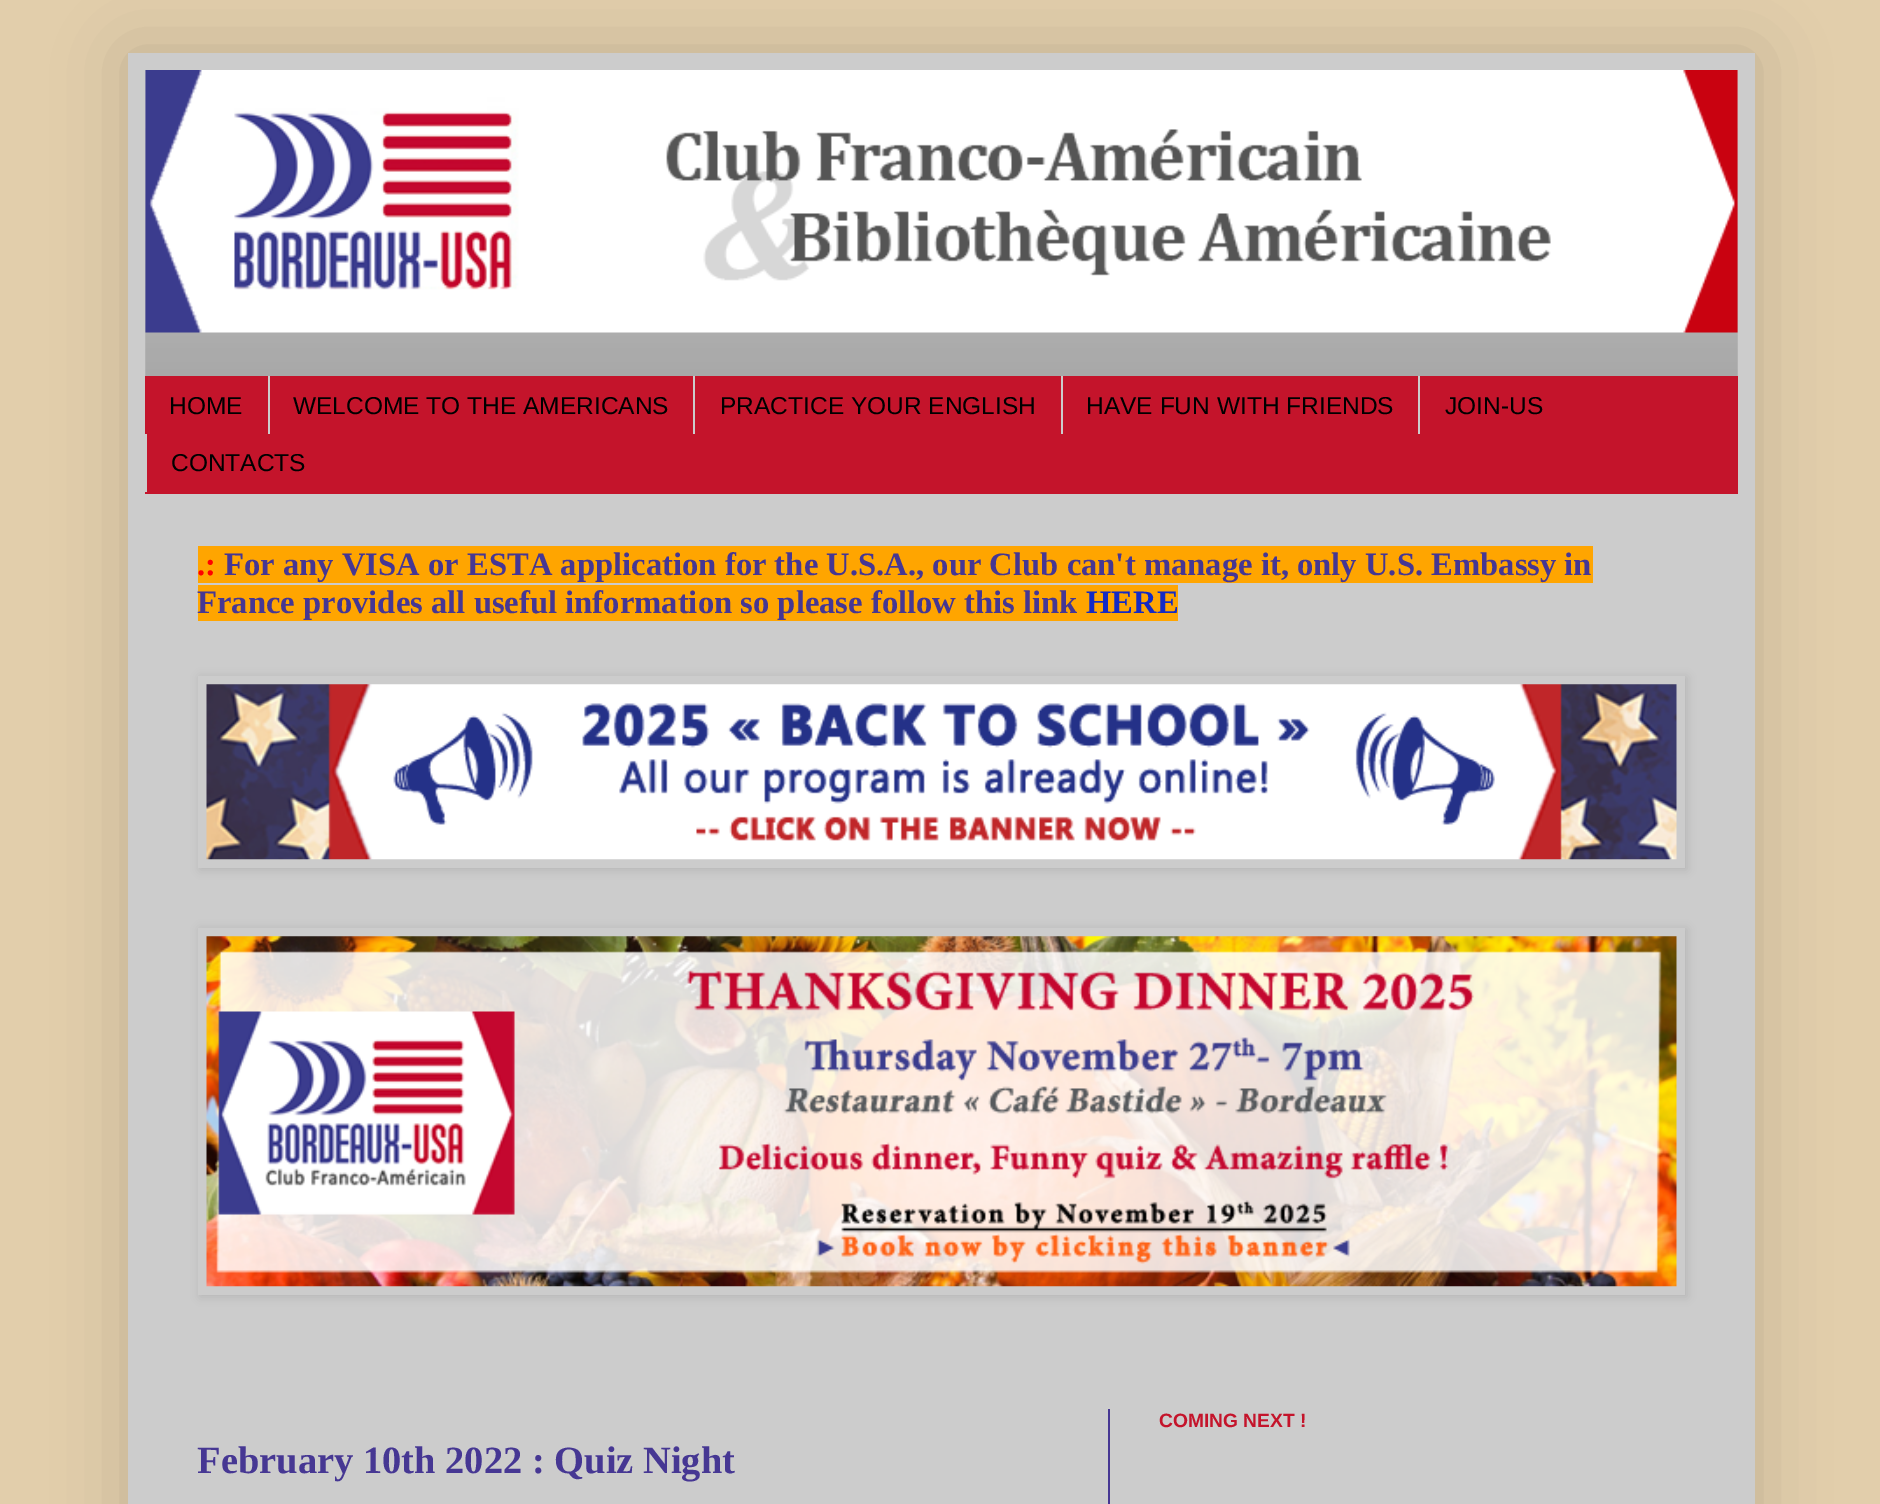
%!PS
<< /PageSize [1880 1504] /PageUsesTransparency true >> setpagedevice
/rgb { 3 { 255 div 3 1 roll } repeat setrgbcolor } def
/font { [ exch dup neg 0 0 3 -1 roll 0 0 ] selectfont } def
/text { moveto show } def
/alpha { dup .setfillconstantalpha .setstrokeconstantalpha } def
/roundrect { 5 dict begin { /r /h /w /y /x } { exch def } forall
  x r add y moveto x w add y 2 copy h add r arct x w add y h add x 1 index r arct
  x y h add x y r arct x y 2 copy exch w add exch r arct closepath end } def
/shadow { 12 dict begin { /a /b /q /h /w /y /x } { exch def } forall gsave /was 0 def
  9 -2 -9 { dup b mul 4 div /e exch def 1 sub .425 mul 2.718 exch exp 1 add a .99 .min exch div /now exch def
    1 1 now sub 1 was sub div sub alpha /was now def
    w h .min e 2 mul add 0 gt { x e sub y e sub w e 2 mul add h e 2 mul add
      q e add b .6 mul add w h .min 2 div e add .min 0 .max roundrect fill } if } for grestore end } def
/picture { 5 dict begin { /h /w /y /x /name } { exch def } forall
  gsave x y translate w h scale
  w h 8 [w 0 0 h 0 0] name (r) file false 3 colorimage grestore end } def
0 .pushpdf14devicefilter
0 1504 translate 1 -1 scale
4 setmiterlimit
226 206 171 rgb
0 0 1880 1504 rectfill
0 0 0 rgb
128 53 1627 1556 0 35 0.15 shadow
204 204 204 rgb
128 53 1627 1451 rectfill
(img_01.rgb) 145 143 1593 233 picture
(img_02.rgb) 145 70 1593 263 picture
196 20 43 rgb
145 376 1593 118 rectfill
204 204 204 rgb
268 376 2 58 rectfill
693 376 2 58 rectfill
1061 376 2 58 rectfill
1418 376 2 58 rectfill
145 434 2 58 rectfill
255 165 0 rgb
198 546 1395 37 rectfill
198 585 980 36 rectfill
gsave
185 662 moveto 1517 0 rlineto 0 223 rlineto -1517 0 rlineto closepath 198 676 moveto 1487 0 rlineto 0 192 rlineto -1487 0 rlineto closepath eoclip newpath
0 0 0 rgb
200 677 1487 193 0 4.5 0.1 shadow
grestore
(img_03.rgb) 206 684 1471 176 picture
gsave
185 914 moveto 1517 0 rlineto 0 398 rlineto -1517 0 rlineto closepath 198 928 moveto 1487 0 rlineto 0 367 rlineto -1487 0 rlineto closepath eoclip newpath
0 0 0 rgb
200 929 1487 368 0 4.5 0.1 shadow
grestore
(img_04.rgb) 206 936 1471 351 picture
70 55 147 rgb
1108 1409 2 95 rectfill
/LiberationSans-Regular 24.5 font
0 0 0 rgb
(HOME) 169 414 text
(WELCOME TO THE AMERICANS) 293 414 text
(PRACTICE YOUR ENGLISH) 720 414 text
(HAVE FUN WITH FRIENDS) 1086 414 text
(JOIN-US) 1445 414 text
(CONTACTS) 171 471 text
/LiberationSerif-Bold 32.65 font
255 0 0 rgb
(.:) 197 575 text
70 55 147 rgb
(For any VISA or ESTA application for the U.S.A., our Club can't manage it, only U.S. Embassy in) 224 575 text
(France provides all useful information so please follow this link) 197 613 text
20 42 196 rgb
(HERE) 1086 613 text
/LiberationSans-Bold 19.25 font
196 20 43 rgb
(COMING NEXT !) 1159 1427 text
/LiberationSerif-Bold 38.5 font
70 55 147 rgb
(February 10th 2022 : Quiz Night) 197 1473 text
.poppdf14devicefilter showpage
